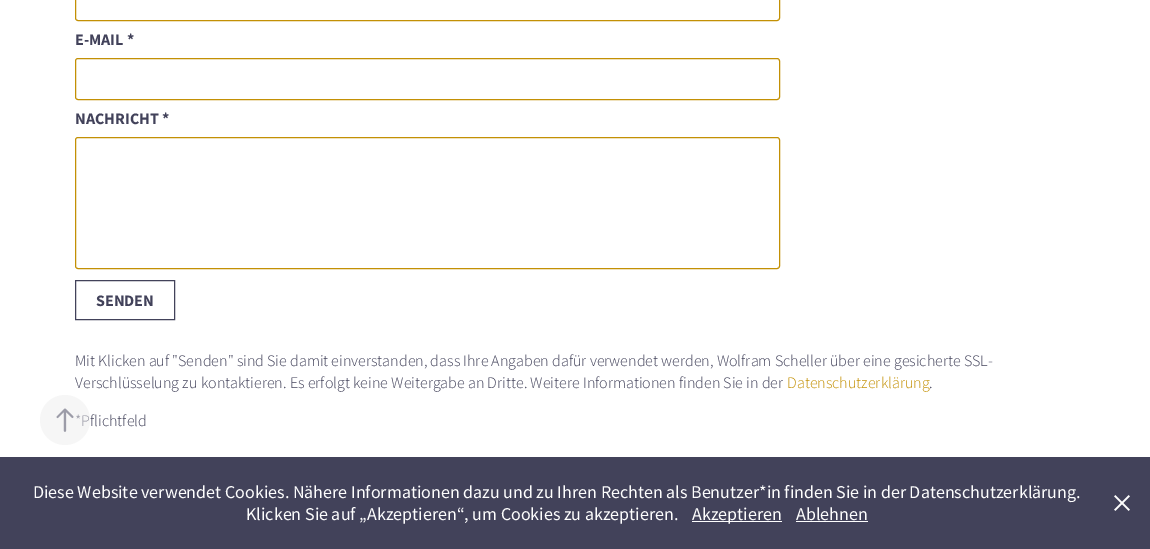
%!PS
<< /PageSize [1150 549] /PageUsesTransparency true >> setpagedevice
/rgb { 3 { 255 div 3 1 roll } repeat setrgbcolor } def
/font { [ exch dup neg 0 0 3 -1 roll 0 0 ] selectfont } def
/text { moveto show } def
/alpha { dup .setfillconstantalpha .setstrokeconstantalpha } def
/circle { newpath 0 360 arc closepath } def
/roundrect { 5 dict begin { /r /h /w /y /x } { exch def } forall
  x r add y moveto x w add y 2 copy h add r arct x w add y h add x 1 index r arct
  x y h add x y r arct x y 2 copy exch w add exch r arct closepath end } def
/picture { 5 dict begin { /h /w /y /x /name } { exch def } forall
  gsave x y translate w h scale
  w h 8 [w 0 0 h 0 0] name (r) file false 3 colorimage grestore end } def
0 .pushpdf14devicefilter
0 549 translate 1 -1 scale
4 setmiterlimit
255 255 255 rgb
0 0 1150 549 rectfill
195 144 4 rgb
75.5 -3.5 704 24 2.5 roundrect stroke
75.5 58.5 704 41 2.5 roundrect stroke
75.5 137.5 704 131 2.5 roundrect stroke
66 66 90 rgb
75.5 280.5 99 39 rectstroke
0 457 1150 92 rectfill
254 254 254 rgb
692 521 90 1 rectfill
796 521 72 1 rectfill
(img_02.rgb) 1114 495 16 16 picture
/SourceSansPro-Bold 16 font
66 66 90 rgb
(E-MAIL *) 75 45 text
(NACHRICHT *) 75 124 text
(SENDEN) 96 306 text
/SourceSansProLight-Light 16 font
(Mit Klicken auf "Senden" sind Sie damit einverstanden, dass Ihre Angaben dafür verwendet werden, Wolfram Scheller über eine gesicherte SSL-) 75 366 text
(Verschlüsselung zu kontaktieren. Es erfolgt keine Weitergabe an Dritte. Weitere Informationen finden Sie in der) 75 388 text
195 144 4 rgb
(Datenschutzerklärung) 787 388 text
66 66 90 rgb
(.) 929 388 text
(*Pflichtfeld) 75 426 text
0.5 alpha
238 238 238 rgb
65 420 25 circle fill
1 alpha
(img_01.rgb) 56 408 18 24 picture
/SourceSansPro-Regular 18 font
254 254 254 rgb
(Diese Website verwendet Cookies. Nähere Informationen dazu und zu Ihren Rechten als Benutzer*in finden Sie in der Datenschutzerklärung.) 33 498 text
(Klicken Sie auf „Akzeptieren“, um Cookies zu akzeptieren.) 246 520 text
(Akzeptieren) 692 520 text
(Ablehnen) 796 520 text
.poppdf14devicefilter showpage
